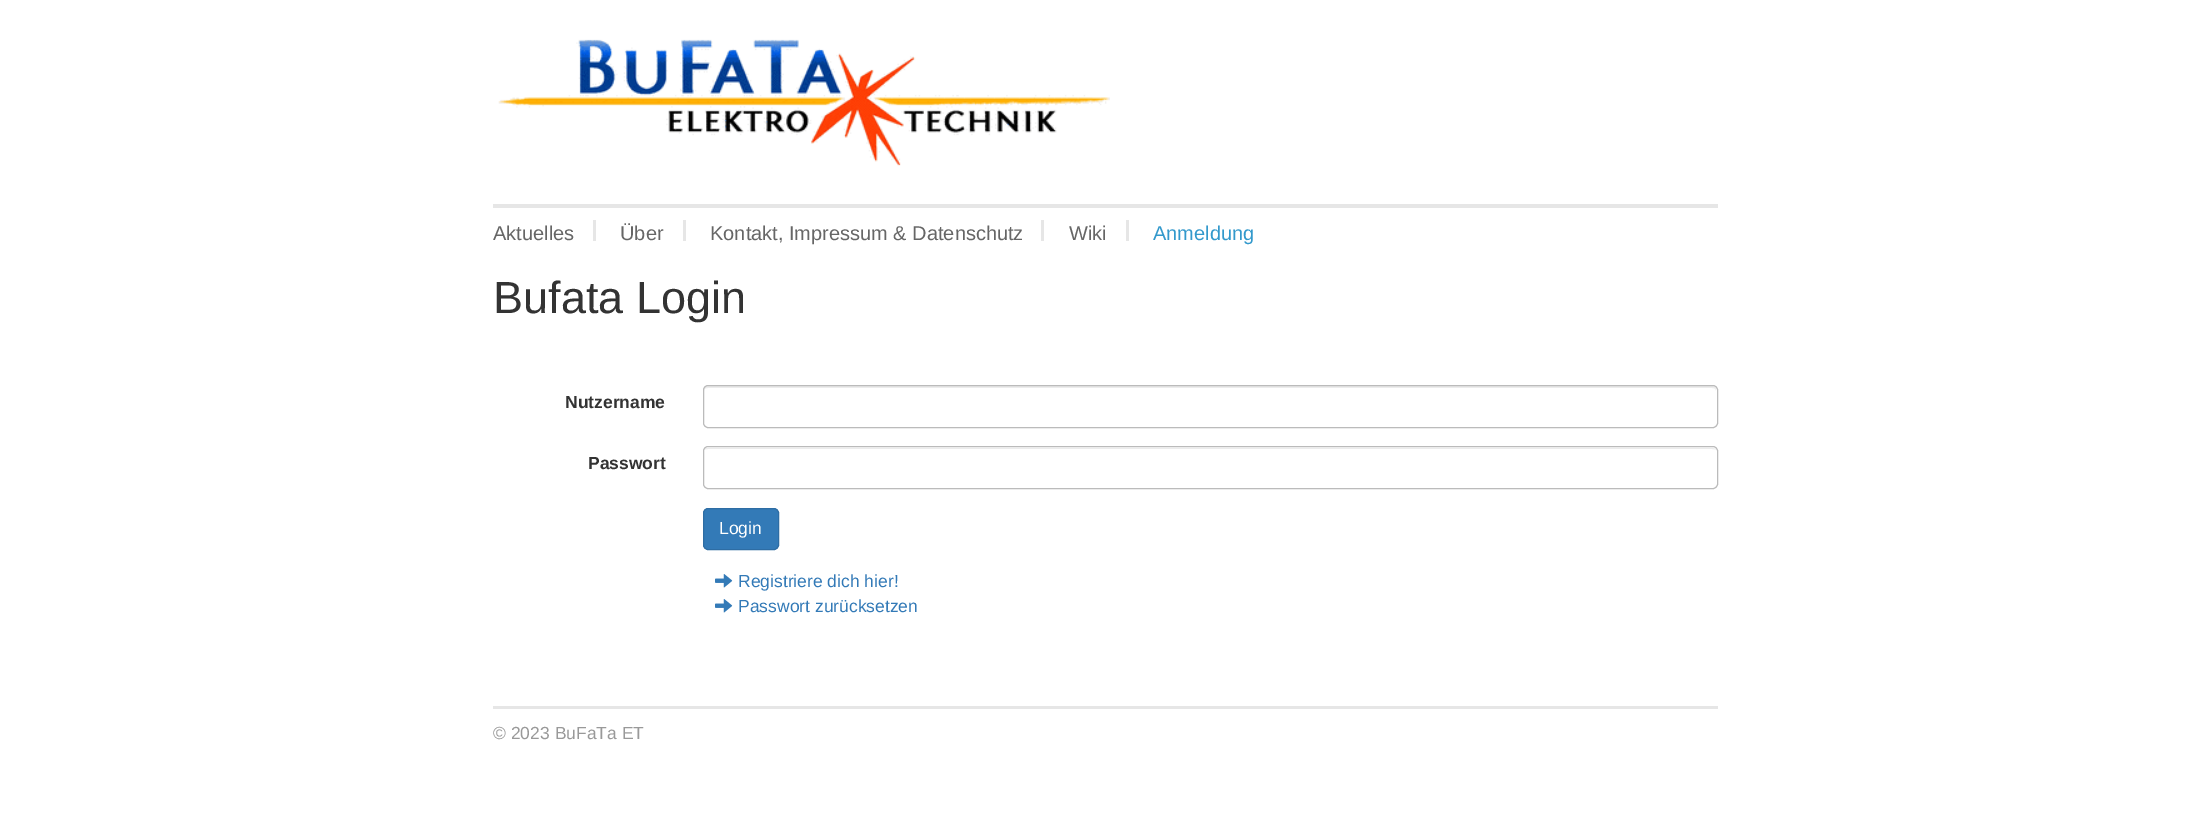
%!PS
<< /PageSize [2210 833] >> setpagedevice
/rgb { 3 { 255 div 3 1 roll } repeat setrgbcolor } def
/font { [ exch dup neg 0 0 3 -1 roll 0 0 ] selectfont } def
/text { moveto show } def
/roundrect { 5 dict begin { /r /h /w /y /x } { exch def } forall
  x r add y moveto x w add y 2 copy h add r arct x w add y h add x 1 index r arct
  x y h add x y r arct x y 2 copy exch w add exch r arct closepath end } def
/picture { 5 dict begin { /h /w /y /x /name } { exch def } forall
  gsave x y translate w h scale
  w h 8 [w 0 0 h 0 0] name (r) file false 3 colorimage grestore end } def
0 833 translate 1 -1 scale
4 setmiterlimit
255 255 255 rgb
0 0 2210 833 rectfill
(img_01.rgb) 498 39 612 127 picture
230 230 230 rgb
493 204 1225 4 rectfill
593 220 3 21 rectfill
683 220 3 21 rectfill
1041 220 3 21 rectfill
1126 220 3 21 rectfill
236 236 236 rgb
708 388 moveto 1004 0 rlineto 3 0 4 1 4 3 rcurveto 0 -3 -1 -5 -4 -5 rcurveto -1004 0 rlineto -3 0 -4 2 -4 5 rcurveto 0 -2 1 -3 4 -3 rcurveto closepath fill
187 187 187 rgb
703.5 385.5 1014 42 4.5 roundrect stroke
236 236 236 rgb
708 449 moveto 1004 0 rlineto 2 0 3 0 4 1 rcurveto -1 -1 -2 -2 -4 -2 rcurveto -1004 0 rlineto -2 0 -3 1 -4 2 rcurveto 1 -1 2 -1 4 -1 rcurveto closepath fill
187 187 187 rgb
703.5 446.5 1014 42 4.5 roundrect stroke
51 122 183 rgb
703.5 508.5 75 41 4.5 roundrect gsave fill grestore
46 109 164 rgb
stroke
(img_02.rgb) 715 574 18 14 picture
(img_02.rgb) 715 599 18 14 picture
230 230 230 rgb
493 706 1225 3 rectfill
/LiberationSans-Regular 20 font
102 102 102 rgb
(Aktuelles) 493 240 text
(Über) 620 240 text
(Kontakt, Impressum & Datenschutz) 710 240 text
(Wiki) 1069 240 text
51 153 204 rgb
(Anmeldung) 1153 240 text
/LiberationSans-Regular 45 font
51 51 51 rgb
(Bufata Login) 493 313 text
/LiberationSans-Bold 17.5 font
(Nutzername) 565 408 text
(Passwort) 588 469 text
/LiberationSans-Regular 17.5 font
255 255 255 rgb
(Login) 719 534 text
51 122 183 rgb
(Registriere dich hier!) 738 587 text
(Passwort zurücksetzen) 738 612 text
153 153 153 rgb
(© 2023 BuFaTa ET) 493 739 text
showpage
